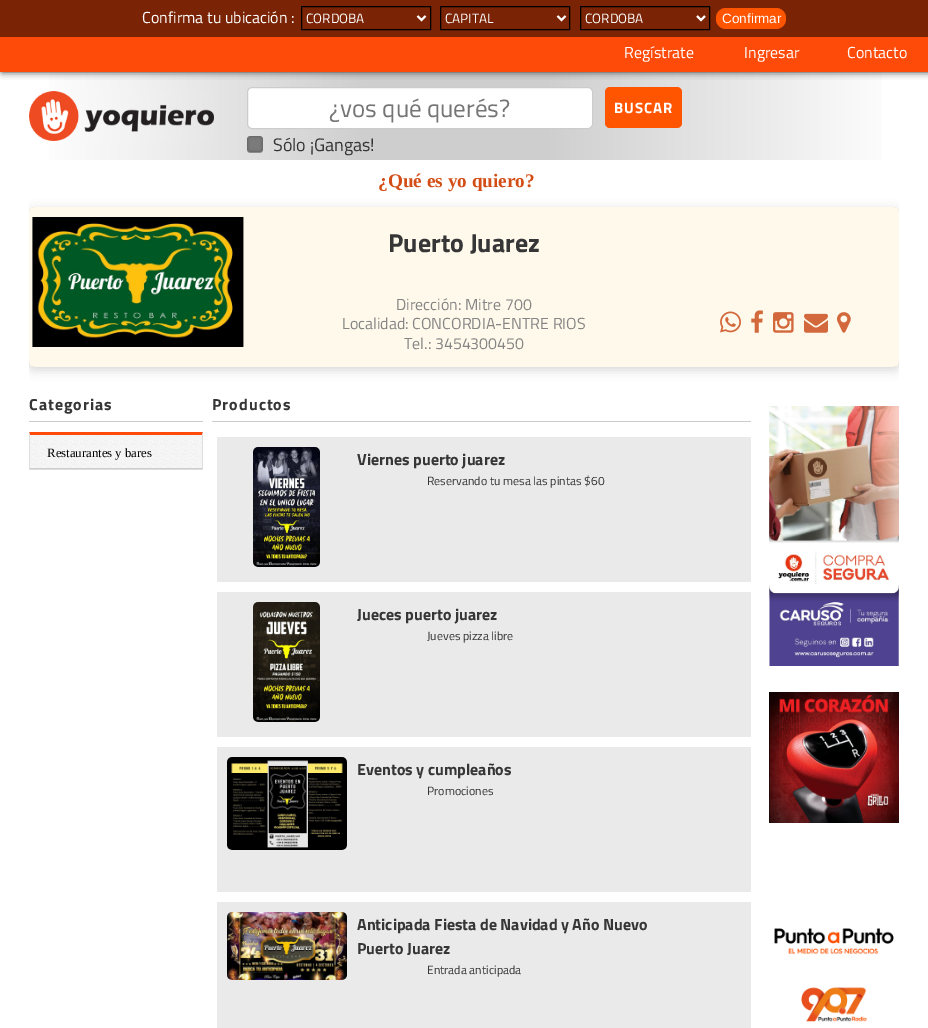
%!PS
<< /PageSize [928 1028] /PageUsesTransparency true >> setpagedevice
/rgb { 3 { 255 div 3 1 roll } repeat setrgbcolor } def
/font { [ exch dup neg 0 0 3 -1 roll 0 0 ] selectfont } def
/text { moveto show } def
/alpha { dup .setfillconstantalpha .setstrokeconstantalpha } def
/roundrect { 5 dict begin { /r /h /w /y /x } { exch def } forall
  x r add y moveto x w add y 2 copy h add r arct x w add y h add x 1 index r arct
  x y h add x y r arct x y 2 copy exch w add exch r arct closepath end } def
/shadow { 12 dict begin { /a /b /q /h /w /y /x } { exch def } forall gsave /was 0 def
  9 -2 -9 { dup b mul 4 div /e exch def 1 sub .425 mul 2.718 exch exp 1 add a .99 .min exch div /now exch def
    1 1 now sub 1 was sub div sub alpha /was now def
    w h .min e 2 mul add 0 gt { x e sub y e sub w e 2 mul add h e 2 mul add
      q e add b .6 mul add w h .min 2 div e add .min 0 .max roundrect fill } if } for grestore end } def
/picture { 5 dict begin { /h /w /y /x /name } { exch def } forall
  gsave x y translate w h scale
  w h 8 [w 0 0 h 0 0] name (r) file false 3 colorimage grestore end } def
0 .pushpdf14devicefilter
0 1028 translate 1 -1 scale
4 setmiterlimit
255 255 255 rgb
0 0 928 1028 rectfill
gsave 49 72 moveto 833 0 rlineto 0 88 rlineto -833 0 rlineto closepath clip newpath
<< /ShadingType 2 /ColorSpace /DeviceRGB /Coords [29 116 899 116] /Extend [true true] /Function << /FunctionType 3 /Domain [0 1] /Functions [<< /FunctionType 2 /Domain [0 1] /C0 [1 1 1] /C1 [0.949 0.949 0.949] /N 1 >> << /FunctionType 2 /Domain [0 1] /C0 [0.949 0.949 0.949] /C1 [0.808 0.808 0.808] /N 1 >> << /FunctionType 2 /Domain [0 1] /C0 [0.808 0.808 0.808] /C1 [0.808 0.808 0.808] /N 1 >> << /FunctionType 2 /Domain [0 1] /C0 [0.808 0.808 0.808] /C1 [0.949 0.949 0.949] /N 1 >> << /FunctionType 2 /Domain [0 1] /C0 [0.949 0.949 0.949] /C1 [1 1 1] /N 1 >>] /Bounds [0.12 0.39 0.59 0.9] /Encode [0 1 0 1 0 1 0 1 0 1] >> >> shfill grestore
51 51 51 rgb
2 0 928 72 0 3.5 1 shadow
255 75 10 rgb
0 37 928 35 rectfill
122 36 5 rgb
0 0 928 37 rectfill
0 0 0 rgb
301.5 6.5 129 23 rectstroke
255 255 255 rgb
2 setlinewidth
417.5 16 moveto 4 4 rlineto 4 -4 rlineto stroke
0 0 0 rgb
1 setlinewidth
440.5 6.5 129 23 rectstroke
255 255 255 rgb
2 setlinewidth
557.5 16 moveto 4 4 rlineto 4 -4 rlineto stroke
0 0 0 rgb
1 setlinewidth
580.5 6.5 129 23 rectstroke
255 255 255 rgb
2 setlinewidth
697 16 moveto 4 4 rlineto 4 -4 rlineto stroke
255 84 0 rgb
716 8 70 21 10 roundrect fill
(img_01.rgb) 29 91 185 50 picture
255 255 255 rgb
247.5 87.5 345 41 4.5 roundrect gsave fill grestore
204 204 204 rgb
1 setlinewidth
stroke
(img_02.rgb) 247 136 16 17 picture
255 84 0 rgb
605 87 77 41 5 roundrect fill
gsave
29 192 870 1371 rectclip
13 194 moveto 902 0 rlineto 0 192 rlineto -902 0 rlineto closepath 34 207 moveto 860 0 rlineto 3 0 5 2 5 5 rcurveto 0 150 rlineto 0 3 -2 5 -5 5 rcurveto -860 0 rlineto -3 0 -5 -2 -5 -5 rcurveto 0 -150 rlineto 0 -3 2 -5 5 -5 rcurveto closepath eoclip newpath
50 50 50 rgb
29 210 870 160 5 5 0.2 shadow
grestore
0.32 alpha
251 235 190 rgb
29 207 870 160 5 roundrect fill
1 alpha
(img_03.rgb) 32 217 212 130 picture
(img_04.rgb) 720 311 21 22 picture
(img_05.rgb) 751 310 12 23 picture
(img_06.rgb) 773 312 21 21 picture
(img_07.rgb) 804 313 24 20 picture
(img_08.rgb) 837 312 14 21 picture
204 204 204 rgb
29 421 174 1 rectfill
(img_09.rgb) 29 432 174 36 picture
255 75 10 rgb
29 432 moveto 174 0 rlineto -1 3 rlineto -172 0 rlineto closepath fill
222 222 222 rgb
203 432 moveto 0 38 rlineto -1 -1 rlineto 0 -34 rlineto closepath fill
29 469 174 1 rectfill
29 470 moveto 0 -38 rlineto 1 3 rlineto 0 34 rlineto closepath fill
204 204 204 rgb
30 468 172 1 rectfill
212 421 539 1 rectfill
234 234 234 rgb
217 437 534 145 rectfill
(img_10.rgb) 253 447 67 120 picture
217 592 534 145 rectfill
(img_11.rgb) 253 602 67 120 picture
217 747 534 145 rectfill
(img_12.rgb) 227 757 120 93 picture
217 902 534 126 rectfill
(img_13.rgb) 227 912 120 68 picture
(img_14.rgb) 769 406 130 260 picture
(img_15.rgb) 769 692 130 131 picture
(img_16.rgb) 774 928 120 94 picture
/TitilliumWeb-Regular 16 font
255 255 255 rgb
(Confirma tu ubicación :) 142 23 text
/TitilliumWeb-Regular 13.5 font
(CORDOBA) 306 23 text
(CAPITAL) 445 23 text
(CORDOBA) 585 23 text
/LiberationSans-Regular 13.5 font
(Confirmar) 722 23 text
/TitilliumWeb-Regular 16 font
(Regístrate) 624 58 text
(Ingresar) 744 58 text
(Contacto) 847 58 text
/TitilliumWeb-Regular 25 font
117 117 117 rgb
(¿vos qué querés?) 329 117 text
/TitilliumWeb-Regular 18 font
54 54 54 rgb
(Sólo ¡Gangas!) 273 151 text
/TitilliumWeb-Bold 15 font
255 255 255 rgb
614 113 moveto 1 0 (BUSCAR) ashow
/LiberationSerif-Bold 19.25 font
211 78 22 rgb
(¿Qué es yo quiero?) 378 187 text
/TitilliumWeb-Bold 26 font
54 54 54 rgb
(Puerto Juarez) 388 252 text
/TitilliumWeb-Regular 16 font
133 133 133 rgb
(Dirección: Mitre 700) 396 310 text
(Localidad: CONCORDIA-ENTRE RIOS) 342 329 text
(Tel.: 3454300450) 404 349 text
/TitilliumWeb-Bold 16 font
54 54 54 rgb
29 410 moveto 1 0 (Categorias) ashow
/LiberationSerif-Regular 12.75 font
0 0 0 rgb
(Restaurantes y bares) 47 457 text
/TitilliumWeb-Bold 16 font
54 54 54 rgb
212 410 moveto 1 0 (Productos) ashow
(Viernes puerto juarez) 357 465 text
/TitilliumWeb-Regular 12 font
(Reservando tu mesa las pintas $60) 427 485 text
/TitilliumWeb-Bold 16 font
(Jueces puerto juarez) 357 620 text
/TitilliumWeb-Regular 12 font
(Jueves pizza libre) 427 640 text
/TitilliumWeb-Bold 16 font
(Eventos y cumpleaños) 357 775 text
/TitilliumWeb-Regular 12 font
(Promociones) 427 795 text
/TitilliumWeb-Bold 16 font
(Anticipada Fiesta de Navidad y Año Nuevo) 357 930 text
(Puerto Juarez) 357 954 text
/TitilliumWeb-Regular 12 font
(Entrada anticipada) 427 974 text
.poppdf14devicefilter showpage
